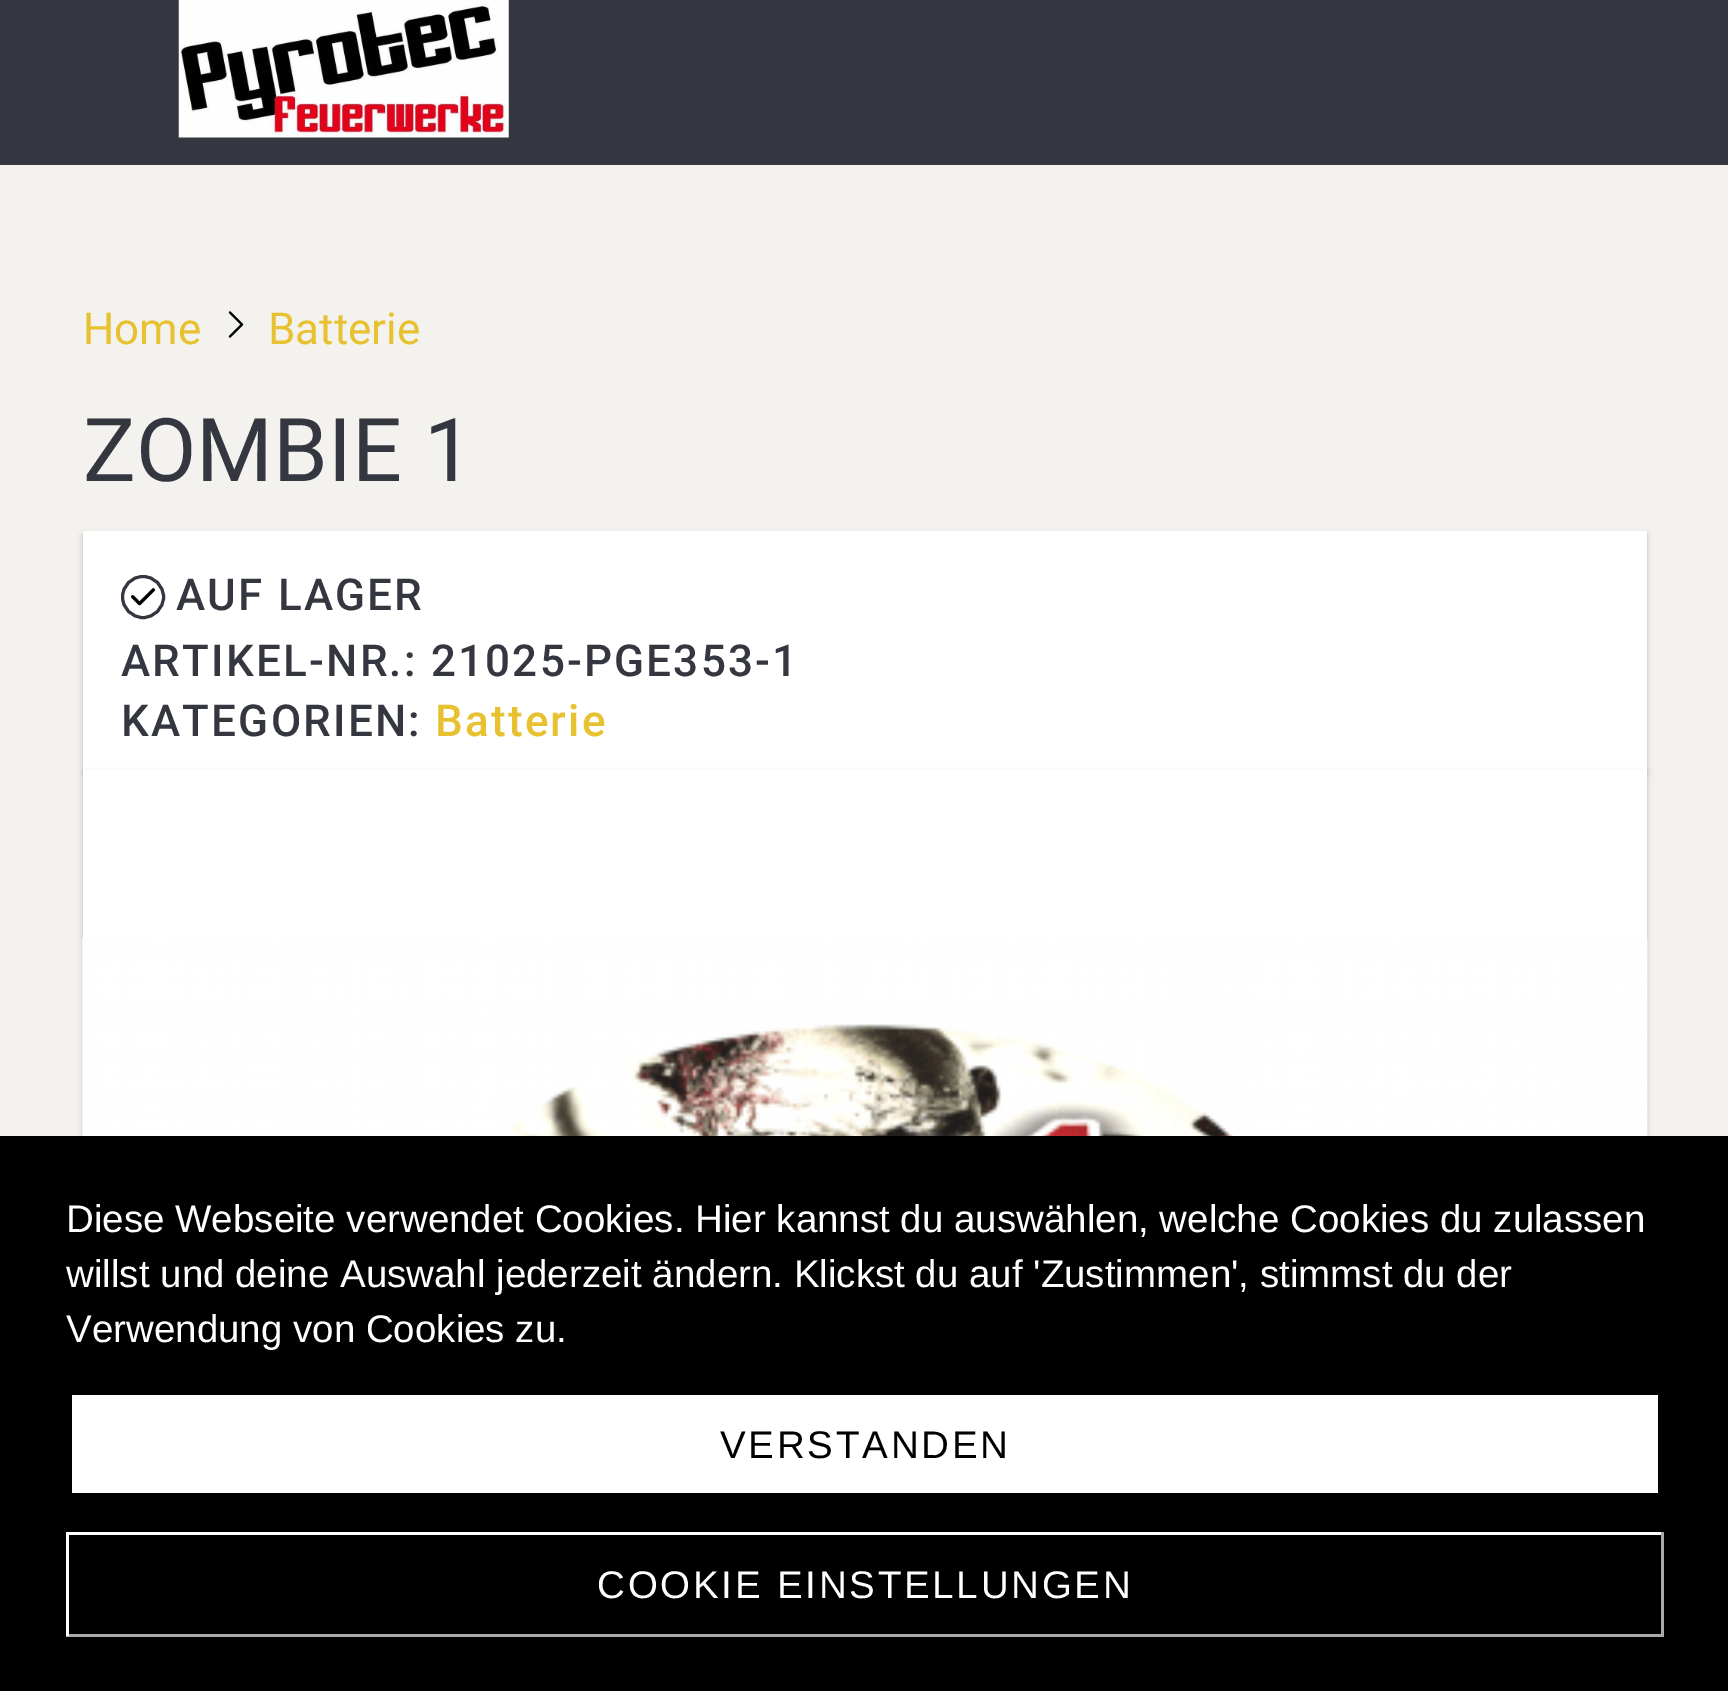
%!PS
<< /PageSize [1728 1691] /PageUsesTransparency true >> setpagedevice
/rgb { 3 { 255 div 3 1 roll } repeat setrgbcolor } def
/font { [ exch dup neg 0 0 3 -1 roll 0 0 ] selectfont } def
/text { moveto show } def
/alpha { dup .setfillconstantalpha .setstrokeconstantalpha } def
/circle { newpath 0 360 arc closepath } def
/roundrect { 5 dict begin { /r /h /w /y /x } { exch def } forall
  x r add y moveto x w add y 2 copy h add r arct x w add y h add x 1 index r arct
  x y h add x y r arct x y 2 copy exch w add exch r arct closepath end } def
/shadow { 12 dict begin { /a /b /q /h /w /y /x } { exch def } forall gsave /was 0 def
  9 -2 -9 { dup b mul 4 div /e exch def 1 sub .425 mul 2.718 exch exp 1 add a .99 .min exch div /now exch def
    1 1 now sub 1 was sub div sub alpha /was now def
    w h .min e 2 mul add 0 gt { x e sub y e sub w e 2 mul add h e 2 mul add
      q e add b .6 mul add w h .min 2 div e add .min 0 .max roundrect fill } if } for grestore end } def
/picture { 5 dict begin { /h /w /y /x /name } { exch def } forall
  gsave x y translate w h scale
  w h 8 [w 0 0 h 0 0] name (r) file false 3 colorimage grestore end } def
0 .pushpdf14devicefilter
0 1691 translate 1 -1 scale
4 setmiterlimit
243 242 238 rgb
0 0 1728 1691 rectfill
53 55 64 rgb
0 0 1728 165 rectfill
(img_01.rgb) 178 0 331 138 picture
(img_02.rgb) 228 311 16 27 picture
30 19 12 rgb
83 534 1564 239 0 1.5 0.1 shadow
83 534 1564 239 0 3 0.15 shadow
255 255 255 rgb
83 531 1564 239 rectfill
53 55 64 rgb
3 setlinewidth
143 597 20.5 circle stroke
(img_03.rgb) 131 588 24 18 picture
30 19 12 rgb
83 773 1564 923 0 1.5 0.1 shadow
83 773 1564 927 0 3 0.15 shadow
255 255 255 rgb
83 770 1564 168 rectfill
(img_04.rgb) 82 938 1566 198 picture
0 0 0 rgb
0 1136 1728 555 rectfill
255 255 255 rgb
72 1395 1586 98 rectfill
66 1532 1598 3 rectfill
170 170 170 rgb
1661 1532 3 104 rectfill
66 1634 1598 3 rectfill
255 255 255 rgb
66 1532 3 104 rectfill
/Roboto-Regular 44 font
232 193 48 rgb
(Home) 83 344 text
(Batterie) 268 344 text
/Roboto-Regular 88 font
53 55 64 rgb
(ZOMBIE 1) 83 481 text
/Roboto-Medium 44 font
176 610 moveto 2.2 0 (AUF LAGER) ashow
121 676 moveto 2.2 0 (ARTIKEL-NR.: 21025-PGE353-1) ashow
121 736 moveto 2.2 0 (KATEGORIEN:) ashow
232 193 48 rgb
435 736 moveto 2.2 0 (Batterie) ashow
/LiberationSans-Regular 38.5 font
255 255 255 rgb
(Diese Webseite verwendet Cookies. Hier kannst du auswählen, welche Cookies du zulassen) 66 1232 text
(willst und deine Auswahl jederzeit ändern. Klickst du auf 'Zustimmen', stimmst du der) 66 1287 text
(Verwendung von Cookies zu.) 66 1342 text
0 0 0 rgb
720 1458 moveto 2.75 0 (VERSTANDEN) ashow
255 255 255 rgb
597 1598 moveto 2.75 0 (COOKIE EINSTELLUNGEN) ashow
.poppdf14devicefilter showpage
